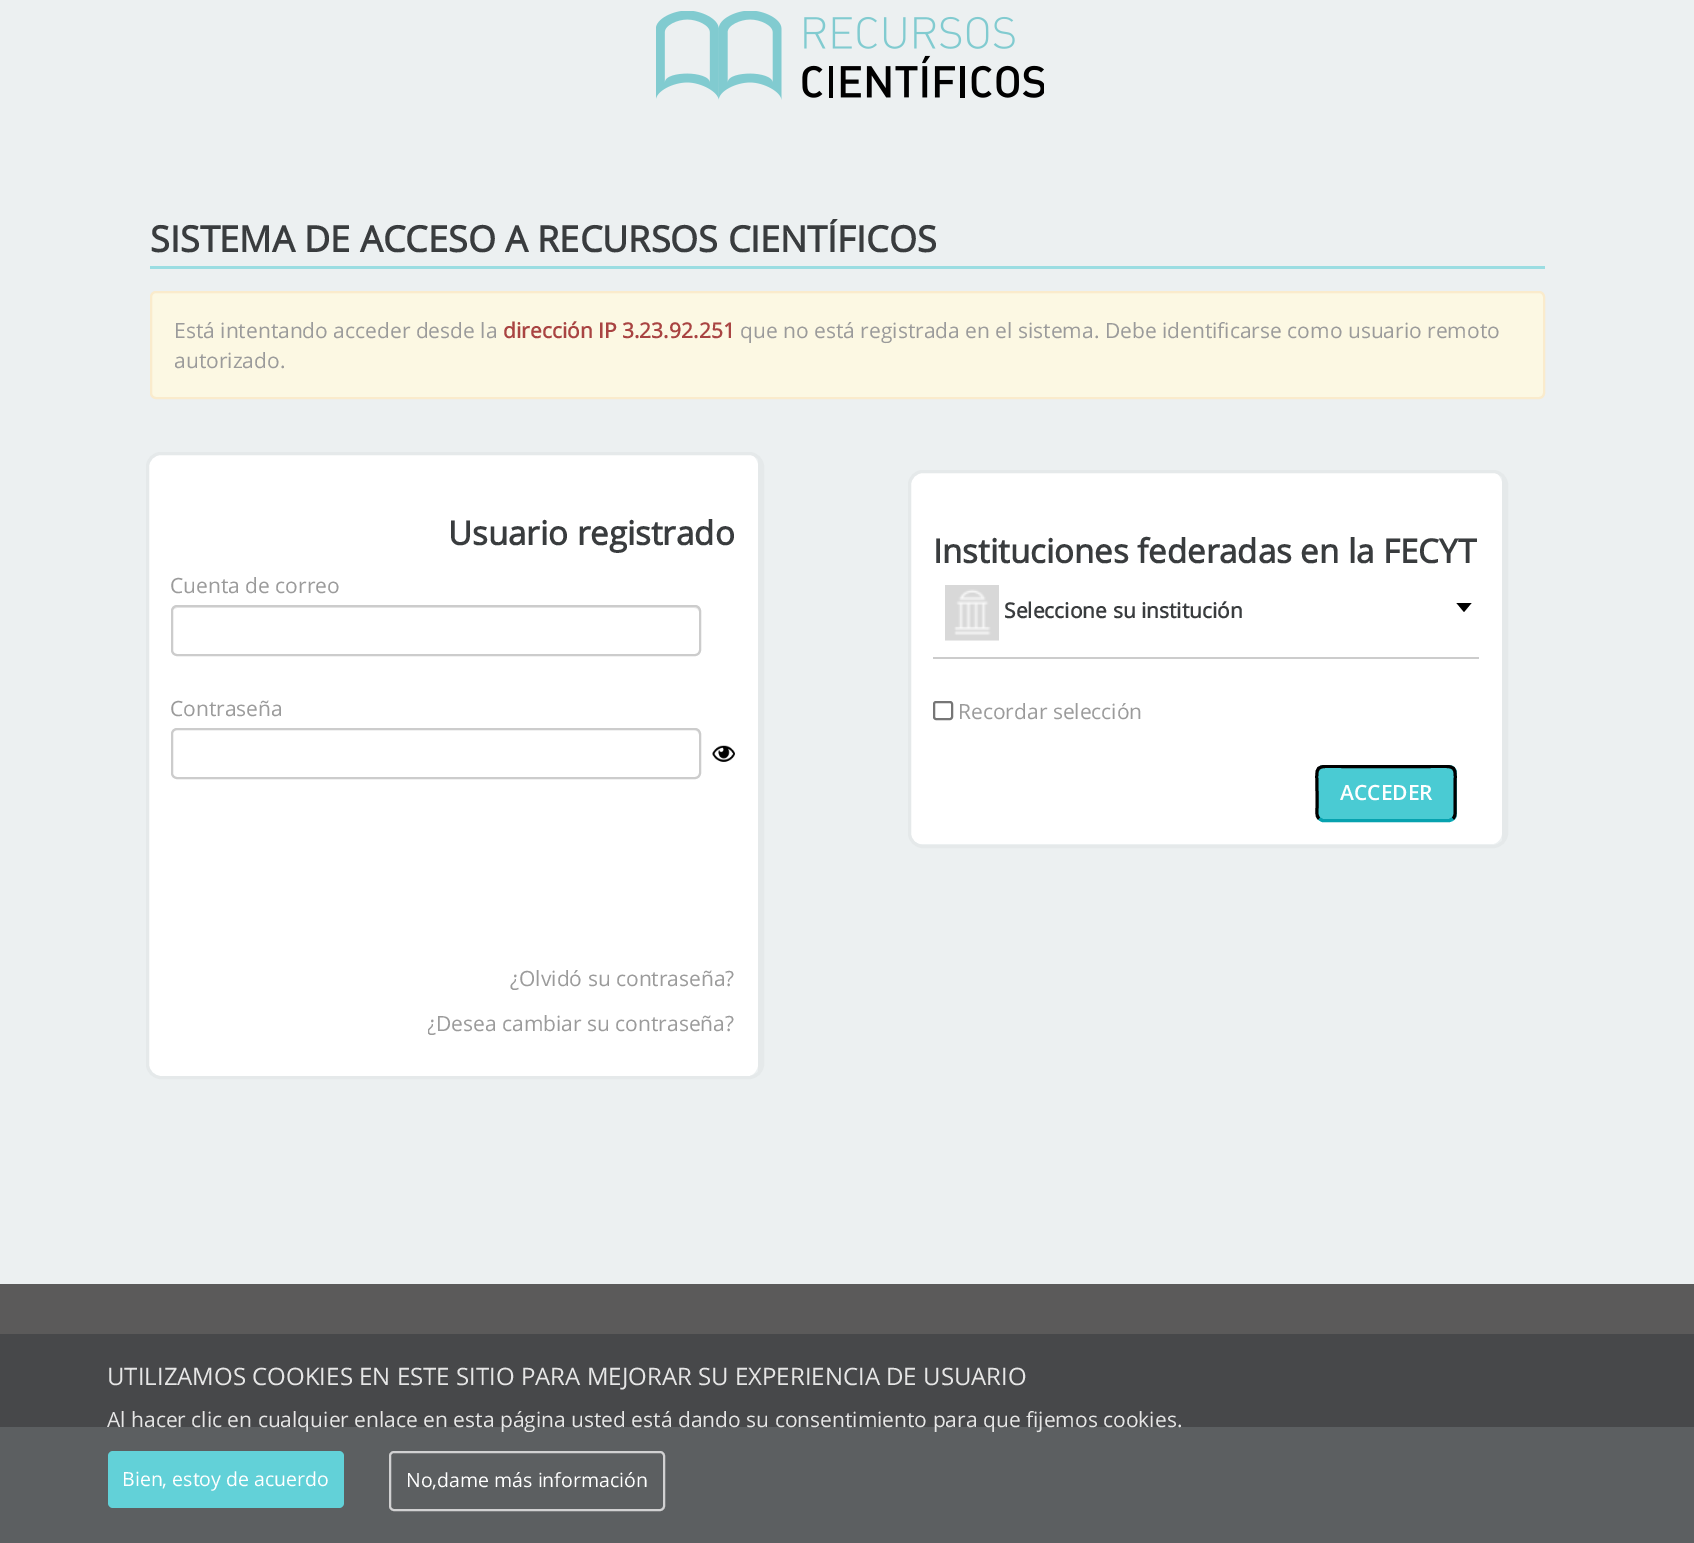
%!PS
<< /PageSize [1694 1543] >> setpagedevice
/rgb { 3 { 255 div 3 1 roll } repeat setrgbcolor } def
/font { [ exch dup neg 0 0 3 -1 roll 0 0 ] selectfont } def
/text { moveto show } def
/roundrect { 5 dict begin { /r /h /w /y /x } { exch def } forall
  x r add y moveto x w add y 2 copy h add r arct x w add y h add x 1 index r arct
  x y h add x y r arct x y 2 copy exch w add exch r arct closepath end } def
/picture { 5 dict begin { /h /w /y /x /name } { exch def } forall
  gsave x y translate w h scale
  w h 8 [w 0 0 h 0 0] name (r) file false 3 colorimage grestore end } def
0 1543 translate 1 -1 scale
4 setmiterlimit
236 240 241 rgb
0 0 1694 1543 rectfill
92 95 97 rgb
0 1427 1694 116 rectfill
(img_01.rgb) 656 11 388 89 picture
155 221 226 rgb
150 266 1395 3 rectfill
252 248 227 rgb
151 292 1393 106 5 roundrect gsave fill grestore
250 235 204 rgb
2 setlinewidth
stroke
255 255 255 rgb
160 454 moveto 588 0 rlineto 5 0 10 6 10 12 rcurveto 0 598 rlineto 0 6 -5 12 -10 12 rcurveto -588 0 rlineto -6 0 -12 -6 -12 -12 rcurveto 0 -598 rlineto 0 -6 6 -12 12 -12 rcurveto closepath fill
229 233 234 rgb
3 setlinewidth
147.5 453.5 615 624 13.5 roundrect stroke
758 459 3 612 rectfill
236 236 236 rgb
177 608 moveto 517 0 rlineto 3 0 5 2 5 4 rcurveto 0 -1 rlineto 0 -3 -2 -5 -5 -5 rcurveto -516 0 rlineto -2 0 -4 2 -5 4 rcurveto 1 -1 3 -2 4 -2 rcurveto closepath fill
204 204 204 rgb
2 setlinewidth
172 606 528 49 5 roundrect stroke
236 236 236 rgb
177 730 moveto 517 0 rlineto 3 0 5 3 5 5 rcurveto 0 -1 rlineto 0 -3 -2 -5 -5 -5 rcurveto -516 0 rlineto -2 0 -4 1 -5 3 rcurveto 1 -1 3 -2 4 -2 rcurveto closepath fill
204 204 204 rgb
172 729 528 49 5 roundrect stroke
(img_02.rgb) 712 745 23 17 picture
255 255 255 rgb
922 472 moveto 570 0 rlineto 5 0 10 6 10 12 rcurveto 0 348 rlineto 0 7 -5 12 -10 12 rcurveto -570 0 rlineto -6 0 -12 -5 -12 -12 rcurveto 0 -348 rlineto 0 -6 6 -12 12 -12 rcurveto closepath fill
229 233 234 rgb
3 setlinewidth
909.5 471.5 597 375 13.5 roundrect stroke
1502 477 3 363 rectfill
204 204 204 rgb
933 657 546 2 rectfill
(img_03.rgb) 945 585 54 56 picture
0 0 0 rgb
1456.5 603 moveto 15 0 rlineto -7.5 9 rlineto closepath fill
118 118 118 rgb
2 setlinewidth
934 702 18 17 2 roundrect stroke
74 203 211 rgb
1316 765 141 57 8 roundrect fill
7 162 175 rgb
3 setlinewidth
1453 818.5 moveto -3.5 2 rlineto -127 0 rlineto -3.5 -2 rlineto stroke
gsave
933 765 546 57 rectclip
0 0 0 rgb
1319 818.5 moveto -3 -2.5 -2 -7.5 -2 -11 rcurveto 0 -14 rlineto 0 -31 -5 -27 27 -27 rcurveto 84 0 rlineto 32 0 27 -4 27 27 rcurveto 0 14 rlineto 0 3.5 1 8.5 -2 11 rcurveto stroke
grestore
91 90 90 rgb
0 1284 1694 50 rectfill
71 72 74 rgb
0 1334 1694 93 rectfill
98 209 216 rgb
108 1451 236 57 5 roundrect fill
209 209 210 rgb
2 setlinewidth
390 1452 274 58 4 roundrect stroke
gsave
150 219 1395 47 rectclip
/OpenSans-Bold 36 font
57 60 62 rgb
(SISTEMA DE ACCESO A RECURSOS CIENTÍFICOS) 150 252 text
grestore
/OpenSans-Regular 21 font
155 155 155 rgb
(Está intentando acceder desde la) 174 338 text
/OpenSans-Bold 21 font
169 68 66 rgb
(dirección IP 3.23.92.251) 503 338 text
/OpenSans-Regular 21 font
155 155 155 rgb
(que no está registrada en el sistema. Debe identificarse como usuario remoto) 740 338 text
(autorizado.) 174 368 text
/OpenSans-Bold 33 font
57 60 62 rgb
(Usuario registrado) 448 545 text
/OpenSans-Regular 21 font
155 155 155 rgb
(Cuenta de correo) 170 593 text
(Contraseña) 170 716 text
(¿Olvidó su contraseña?) 510 986 text
gsave
428 1008 307 30 rectclip
(¿Desea cambiar su contraseña?) 427 1031 text
grestore
/OpenSans-Bold 33 font
57 60 62 rgb
(Instituciones federadas en la FECYT) 933 563 text
/OpenSans-Bold 21 font
(Seleccione su institución) 1004 618 text
/OpenSans-Regular 21 font
155 155 155 rgb
(Recordar selección) 958 719 text
/OpenSans-SemiBold 21 font
255 255 255 rgb
(ACCEDER) 1340 800 text
/OpenSans-Regular 24 font
230 230 230 rgb
(UTILIZAMOS COOKIES EN ESTE SITIO PARA MEJORAR SU EXPERIENCIA DE USUARIO) 107 1385 text
/OpenSans-Regular 21 font
(Al hacer clic en cualquier enlace en esta página usted está dando su consentimiento para que fijemos cookies.) 107 1427 text
/OpenSans-Regular 19.5 font
255 255 255 rgb
(Bien, estoy de acuerdo) 122 1486 text
(No,dame más información) 406 1487 text
showpage
